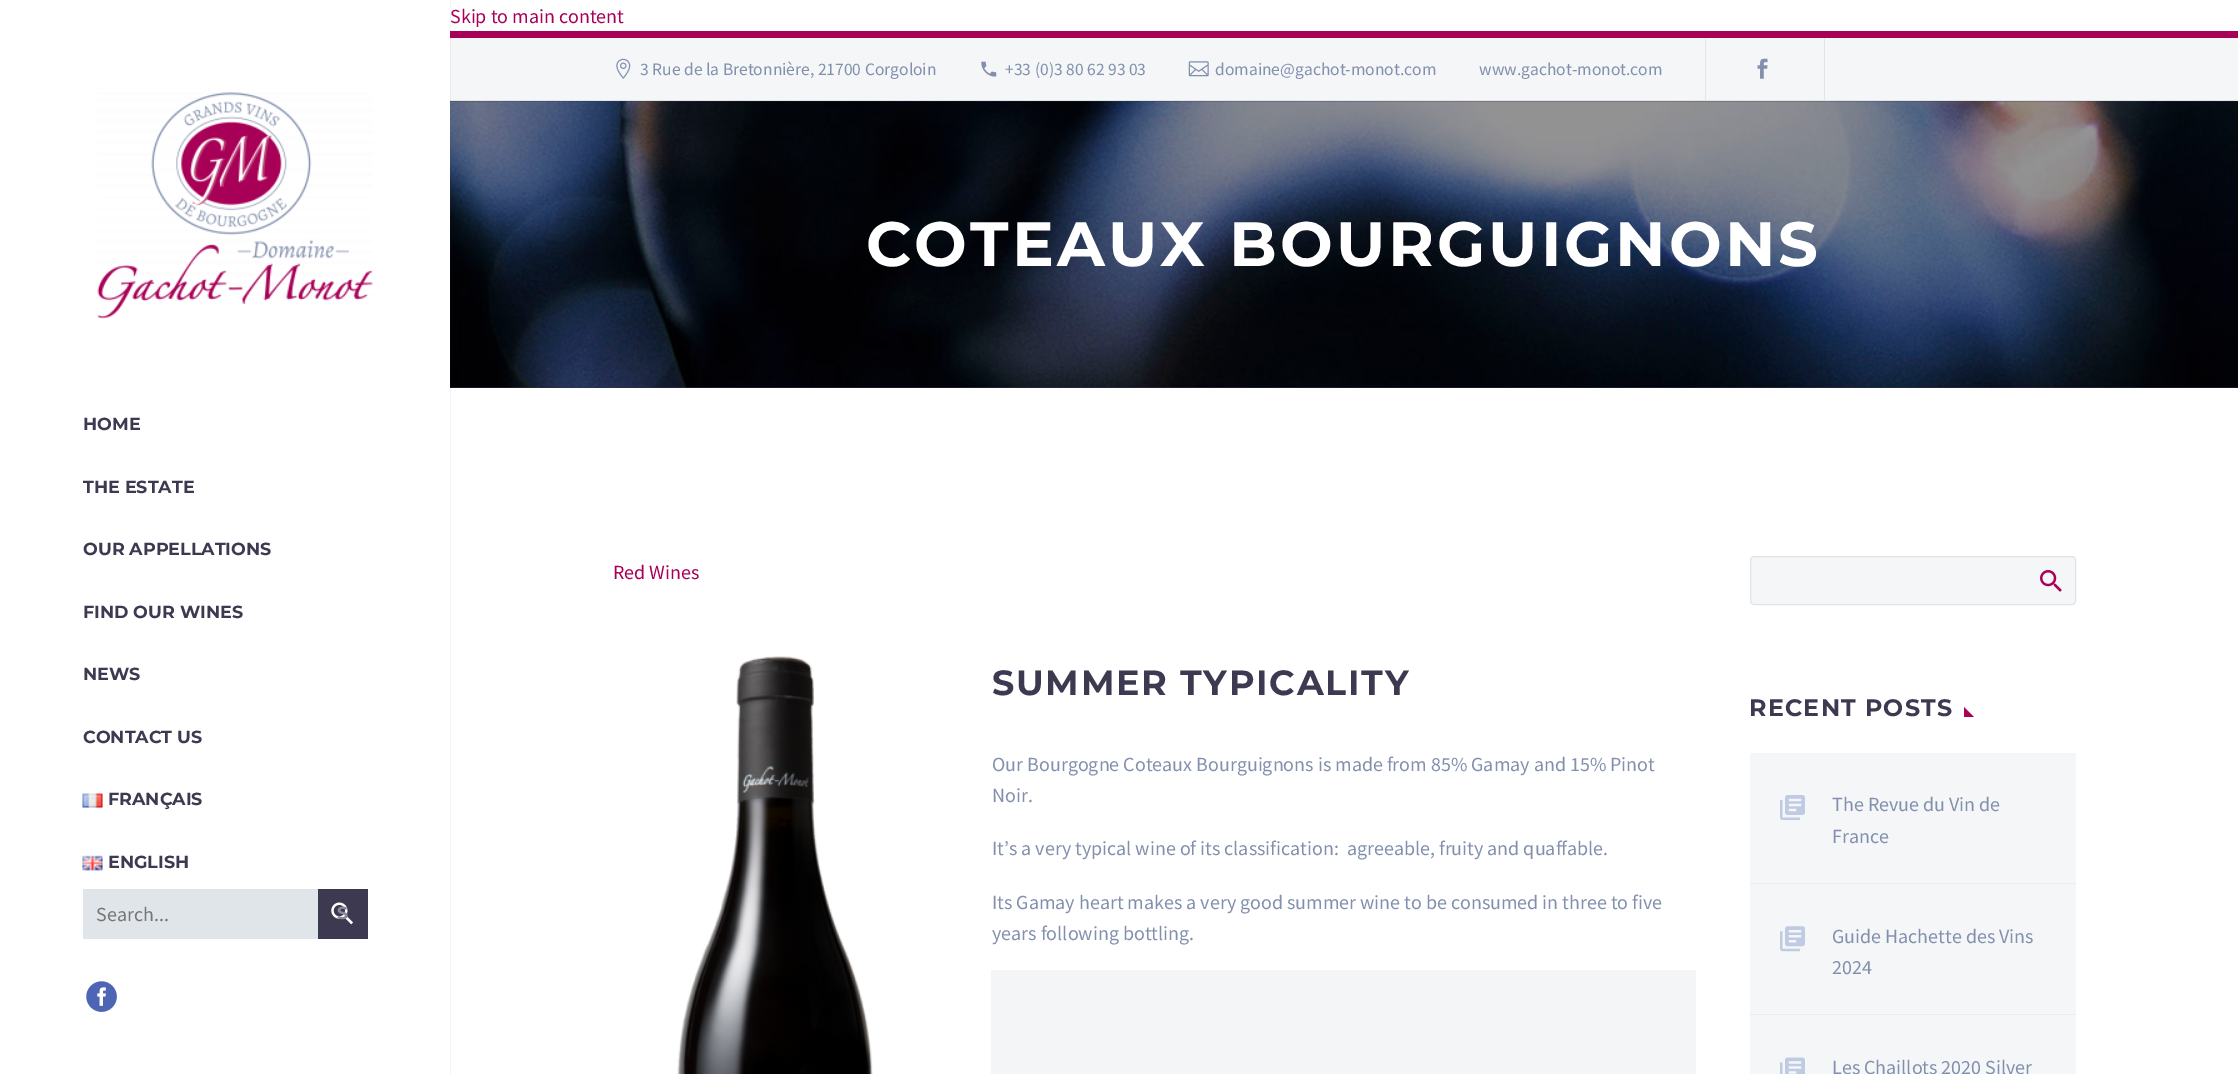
%!PS
<< /PageSize [2238 1074] /PageUsesTransparency true >> setpagedevice
/rgb { 3 { 255 div 3 1 roll } repeat setrgbcolor } def
/font { [ exch dup neg 0 0 3 -1 roll 0 0 ] selectfont } def
/text { moveto show } def
/alpha { dup .setfillconstantalpha .setstrokeconstantalpha } def
/roundrect { 5 dict begin { /r /h /w /y /x } { exch def } forall
  x r add y moveto x w add y 2 copy h add r arct x w add y h add x 1 index r arct
  x y h add x y r arct x y 2 copy exch w add exch r arct closepath end } def
/shadow { 12 dict begin { /a /b /q /h /w /y /x } { exch def } forall gsave /was 0 def
  9 -2 -9 { dup b mul 4 div /e exch def 1 sub .425 mul 2.718 exch exp 1 add a .99 .min exch div /now exch def
    1 1 now sub 1 was sub div sub alpha /was now def
    w h .min e 2 mul add 0 gt { x e sub y e sub w e 2 mul add h e 2 mul add
      q e add b .6 mul add w h .min 2 div e add .min 0 .max roundrect fill } if } for grestore end } def
/picture { 5 dict begin { /h /w /y /x /name } { exch def } forall
  gsave x y translate w h scale
  w h 8 [w 0 0 h 0 0] name (r) file false 3 colorimage grestore end } def
0 .pushpdf14devicefilter
0 1074 translate 1 -1 scale
4 setmiterlimit
255 255 255 rgb
0 0 2238 1074 rectfill
244 246 247 rgb
450 38 1788 62 rectfill
168 0 87 rgb
450 31 1788 7 rectfill
223 229 232 rgb
450 100 1788 1 rectfill
(img_01.rgb) 616 58 15 21 picture
(img_02.rgb) 981 61 16 16 picture
(img_03.rgb) 1188 61 21 16 picture
1705 38 1 62 rectfill
(img_04.rgb) 1757 58 11 21 picture
1824 38 1 62 rectfill
51 49 68 rgb
450 101 1788 287 rectfill
(img_10.rgb) 450 101 1788 287 picture
gsave
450 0 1 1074 rectclip
56 69 84 rgb
0 0 450 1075 0 1 0.2 shadow
grestore
(img_05.rgb) 97 92 276 227 picture
(img_06.rgb) 82 793 21 15 picture
(img_07.rgb) 82 855 21 16 picture
224 229 233 rgb
83 889 235 50 rectfill
61 57 80 rgb
318 889 50 50 rectfill
(img_08.rgb) 331 902 22 23 picture
(img_09.rgb) 86 981 31 31 picture
(img_11.rgb) 677 656 196 418 picture
243 245 246 rgb
991 970 705 104 rectfill
244 246 247 rgb
1750.5 556.5 325 48 3.5 roundrect gsave fill grestore
223 229 232 rgb
stroke
(img_12.rgb) 2040 570 22 22 picture
168 0 87 rgb
1964 707 moveto 0 10 rlineto 10 0 rlineto closepath fill
244 246 247 rgb
1750 753 326 321 rectfill
233 236 242 rgb
1750 883 326 1 rectfill
(img_13.rgb) 1780 795 25 25 picture
1750 1014 326 1 rectfill
(img_14.rgb) 1780 926 25 26 picture
(img_15.rgb) 1780 1057 25 17 picture
/SourceSansPro-Regular 20 font
168 0 87 rgb
(Skip to main content) 450 23 text
/SourceSansPro-Regular 17.5 font
130 144 173 rgb
(3 Rue de la Bretonnière, 21700 Corgoloin) 640 75 text
(+33 \(0\)3 80 62 93 03) 1005 75 text
(domaine@gachot-monot.com) 1215 75 text
(www.gachot-monot.com) 1479 75 text
/Montserrat-Bold 17.5 font
60 57 80 rgb
(HOME) 83 430 text
(THE ESTATE) 83 493 text
(OUR APPELLATIONS) 83 555 text
(FIND OUR WINES) 83 618 text
(NEWS) 83 680 text
(CONTACT US) 83 743 text
(FRANÇAIS) 108 805 text
(ENGLISH) 108 868 text
/SourceSansPro-Regular 20 font
117 117 117 rgb
(Search...) 96 921 text
/Montserrat-Bold 17.5 font
139 137 151 rgb
(S) 337 919 text
/Montserrat-Bold 62.5 font
255 255 255 rgb
866 266 moveto 3.1 0 (COTEAUX BOURGUIGNONS) ashow
/SourceSansPro-Regular 20 font
168 0 87 rgb
(Red Wines) 613 579 text
/Montserrat-Bold 35 font
60 57 80 rgb
992 695 moveto 1.75 0 (SUMMER TYPICALITY) ashow
/SourceSansPro-Regular 20 font
130 144 173 rgb
(Our Bourgogne Coteaux Bourguignons is made from 85% Gamay and 15% Pinot) 992 771 text
(Noir.) 992 802 text
(It’s a very typical wine of its classification:  agreeable, fruity and quaffable.) 992 855 text
(Its Gamay heart makes a very good summer wine to be consumed in three to five) 992 909 text
(years following bottling.) 992 940 text
/Montserrat-Bold 23.75 font
60 57 80 rgb
1749 716 moveto 1.25 0 (RECENT POSTS) ashow
/SourceSansPro-Regular 20 font
130 144 173 rgb
(The Revue du Vin de) 1832 811 text
(France) 1832 843 text
(Guide Hachette des Vins) 1832 943 text
(2024) 1832 974 text
(Les Chaillots 2020 Silver) 1832 1074 text
.poppdf14devicefilter showpage
